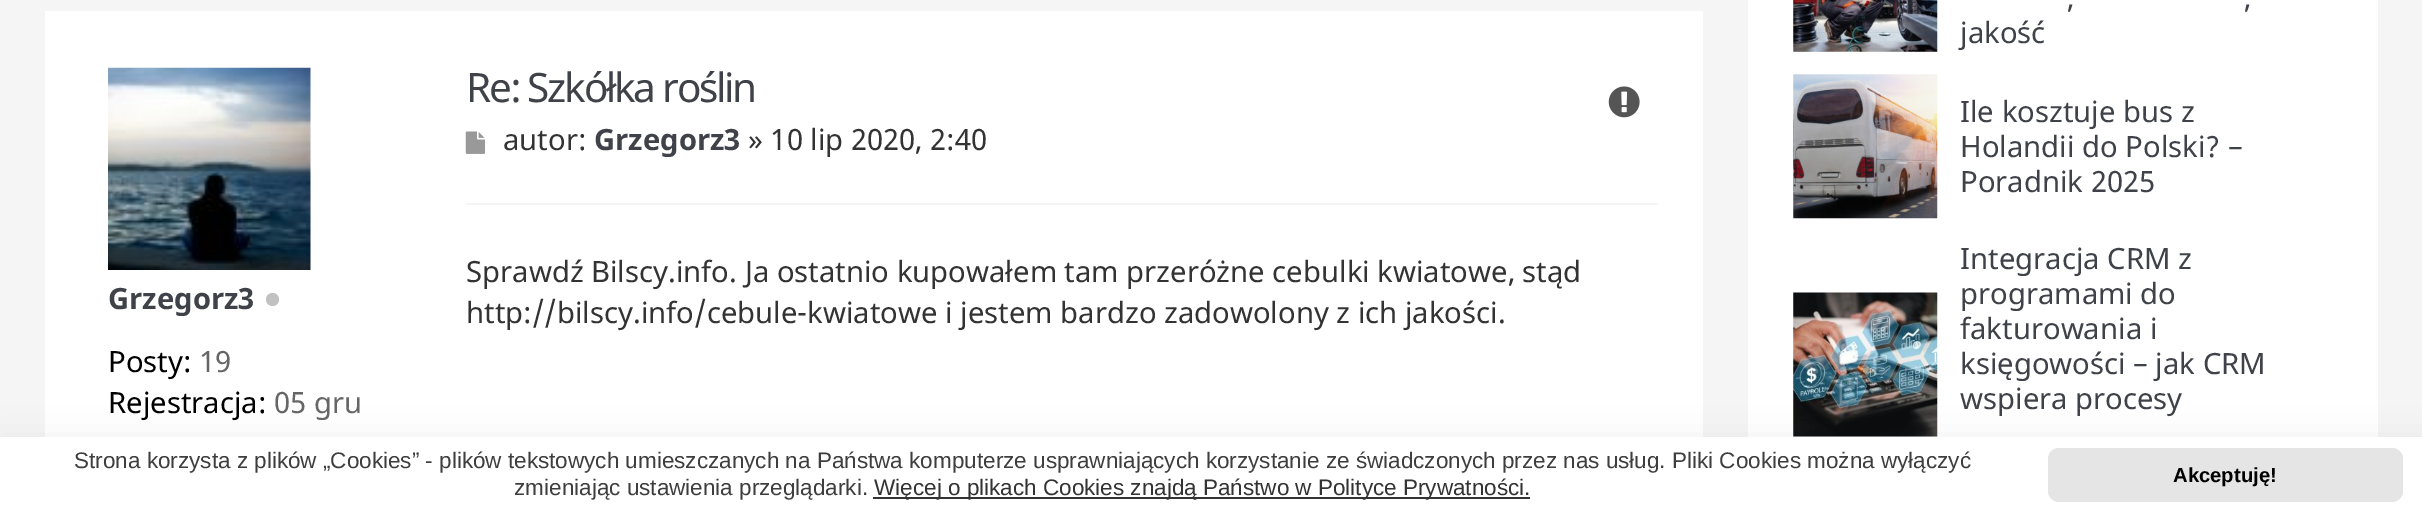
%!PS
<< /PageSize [2422 511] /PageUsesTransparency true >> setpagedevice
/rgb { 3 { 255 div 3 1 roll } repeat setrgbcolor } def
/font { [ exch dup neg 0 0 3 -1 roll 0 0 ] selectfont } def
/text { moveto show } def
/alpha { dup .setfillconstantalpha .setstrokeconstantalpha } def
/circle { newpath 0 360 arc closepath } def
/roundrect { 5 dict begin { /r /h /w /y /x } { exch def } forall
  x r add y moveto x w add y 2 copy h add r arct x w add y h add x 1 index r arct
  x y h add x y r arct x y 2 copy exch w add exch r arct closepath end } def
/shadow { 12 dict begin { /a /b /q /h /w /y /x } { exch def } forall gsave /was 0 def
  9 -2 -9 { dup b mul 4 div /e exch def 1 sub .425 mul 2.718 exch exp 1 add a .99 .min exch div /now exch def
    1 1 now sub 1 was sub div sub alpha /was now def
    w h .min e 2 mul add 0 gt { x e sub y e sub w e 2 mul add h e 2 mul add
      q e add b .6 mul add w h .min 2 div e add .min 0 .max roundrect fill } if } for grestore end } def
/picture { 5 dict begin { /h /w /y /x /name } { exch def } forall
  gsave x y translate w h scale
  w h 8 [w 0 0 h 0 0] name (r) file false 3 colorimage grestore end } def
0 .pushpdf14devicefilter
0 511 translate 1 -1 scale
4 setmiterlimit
245 245 245 rgb
0 0 2422 511 rectfill
255 255 255 rgb
45 11 1658 426 rectfill
(img_01.rgb) 1608 86 32 32 picture
(img_02.rgb) 465 131 20 23 picture
245 245 245 rgb
466 203 1192 2 rectfill
(img_03.rgb) 108 67 203 203 picture
193 193 193 rgb
272.5 299.5 6.5 circle fill
255 255 255 rgb
1748 0 630 437 rectfill
(img_04.rgb) 1793 0 145 52 picture
(img_05.rgb) 1793 74 145 145 picture
(img_06.rgb) 1793 292 145 145 picture
0 0 0 rgb
0 437 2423 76 0 18 0.05 shadow
255 255 255 rgb
0 437 2422 74 rectfill
51 51 51 rgb
873 497 657 2 rectfill
229 229 229 rgb
2048 448 355 54 11 roundrect fill
/NotoSans-Regular 40.5 font
63 66 72 rgb
466 102 moveto -2.25 0 (Re: Szkółka roślin) ashow
/NotoSans-Regular 29.25 font
51 51 51 rgb
(autor:) 503 150 text
/NotoSans-Bold 29.25 font
63 66 72 rgb
(Grzegorz3) 594 150 text
/NotoSans-Regular 29.25 font
51 51 51 rgb
(» 10 lip 2020, 2:40) 748 150 text
(Sprawdź Bilscy.info. Ja ostatnio kupowałem tam przeróżne cebulki kwiatowe, stąd) 466 282 text
(http://bilscy.info/cebule-kwiatowe i jestem bardzo zadowolony z ich jakości.) 466 323 text
/NotoSans-Bold 29.25 font
63 66 72 rgb
(Grzegorz3) 108 309 text
/NotoSans-Regular 29.25 font
0 0 0 rgb
(Posty:) 108 372 text
102 102 102 rgb
(19) 199 372 text
0 0 0 rgb
(Rejestracja:) 108 413 text
102 102 102 rgb
(05 gru) 274 413 text
63 66 72 rgb
(,) 2067 8 text
(,) 2244 8 text
(jakość) 1960 43 text
(Ile kosztuje bus z) 1960 122 text
(Holandii do Polski? –) 1960 157 text
(Poradnik 2025) 1960 192 text
(Integracja CRM z) 1960 269 text
(programami do) 1960 304 text
(fakturowania i) 1960 339 text
(księgowości – jak CRM) 1960 374 text
(wspiera procesy) 1960 409 text
/LiberationSans-Regular 22.5 font
62 62 62 rgb
(Strona korzysta z plików „Cookies” - plików tekstowych umieszczanych na Państwa komputerze usprawniających korzystanie ze świadczonych przez nas usług. Pliki Cookies można wyłączyć) 74 468 text
(zmieniając ustawienia przeglądarki.) 514 495 text
51 51 51 rgb
(Więcej o plikach Cookies znajdą Państwo w Polityce Prywatności.) 874 495 text
/LiberationSans-Bold 20.25 font
0 0 0 rgb
(Akceptuję!) 2173 482 text
.poppdf14devicefilter showpage
